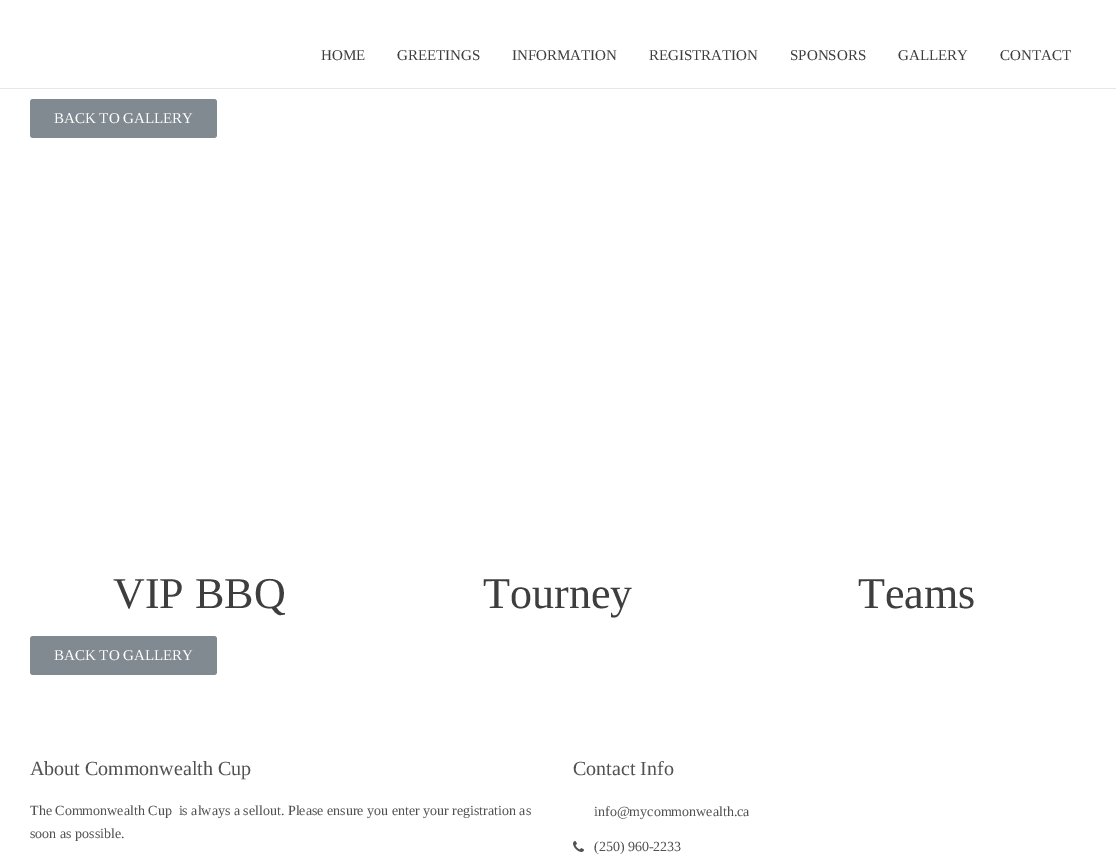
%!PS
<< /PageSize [1116 864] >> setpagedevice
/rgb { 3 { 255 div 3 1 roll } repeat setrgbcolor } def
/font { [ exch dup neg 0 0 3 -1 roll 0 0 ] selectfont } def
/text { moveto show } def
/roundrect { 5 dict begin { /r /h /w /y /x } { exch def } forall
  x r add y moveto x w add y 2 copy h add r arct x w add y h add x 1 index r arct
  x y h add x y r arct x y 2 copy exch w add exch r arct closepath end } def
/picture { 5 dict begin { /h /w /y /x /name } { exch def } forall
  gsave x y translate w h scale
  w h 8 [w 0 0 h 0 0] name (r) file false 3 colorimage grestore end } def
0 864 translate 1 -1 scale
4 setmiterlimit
255 255 255 rgb
0 0 1116 864 rectfill
231 231 231 rgb
0 88 1116 1 rectfill
129 138 145 rgb
30 99 187 39 3 roundrect fill
30 636 187 39 3 roundrect fill
(img_01.rgb) 573 841 11 11 picture
/LiberationSerif-Regular 15 font
62 62 62 rgb
(HOME) 321 60 text
(GREETINGS) 397 60 text
(INFORMATION) 512 60 text
(REGISTRATION) 649 60 text
(SPONSORS) 790 60 text
(GALLERY) 898 60 text
(CONTACT) 1000 60 text
255 255 255 rgb
(BACK TO GALLERY) 54 123 text
/LiberationSerif-Regular 44 font
62 62 62 rgb
(VIP BBQ) 113 608 text
(Tourney) 483 608 text
(Teams) 858 608 text
/LiberationSerif-Regular 15 font
255 255 255 rgb
(BACK TO GALLERY) 54 660 text
/LiberationSerif-Regular 20 font
81 81 81 rgb
(About Commonwealth Cup) 30 775 text
/LiberationSerif-Regular 14 font
(The Commonwealth Cup  is always a sellout. Please ensure you enter your registration as) 30 815 text
(soon as possible.) 30 838 text
/LiberationSerif-Regular 20 font
(Contact Info) 573 775 text
/LiberationSerif-Regular 14 font
(info@mycommonwealth.ca) 594 816 text
(\(250\) 960-2233) 594 851 text
showpage
